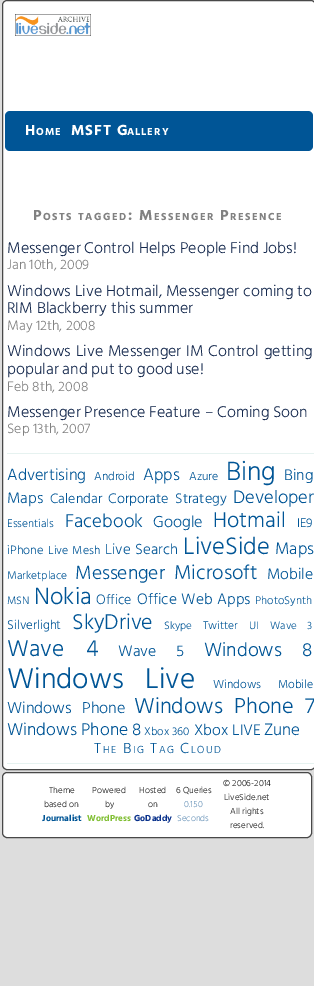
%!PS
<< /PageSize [314 986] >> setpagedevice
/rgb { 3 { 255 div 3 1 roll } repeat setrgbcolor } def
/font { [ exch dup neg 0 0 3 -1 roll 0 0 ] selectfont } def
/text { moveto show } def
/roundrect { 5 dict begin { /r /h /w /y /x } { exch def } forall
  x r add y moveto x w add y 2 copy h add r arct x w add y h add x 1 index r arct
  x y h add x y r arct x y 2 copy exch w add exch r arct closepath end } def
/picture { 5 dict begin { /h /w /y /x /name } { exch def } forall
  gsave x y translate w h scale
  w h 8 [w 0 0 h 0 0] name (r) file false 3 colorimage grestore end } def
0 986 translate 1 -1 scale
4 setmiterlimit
221 221 221 rgb
0 0 314 986 rectfill
255 255 255 rgb
2.5 0.5 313 769 4.5 roundrect gsave fill grestore
72 72 72 rgb
stroke
(img_01.rgb) 15 14 76 22 picture
0 85 150 rgb
5 111 308 40 5 roundrect fill
230 242 240 rgb
7 453 307 1 rectfill
7 763 307 1 rectfill
255 255 255 rgb
2.5 772.5 309 65 4.5 roundrect gsave fill grestore
72 72 72 rgb
stroke
/Hind-Bold 15 font
255 255 255 rgb
25 135 moveto 1 0 (H) ashow
/Hind-Bold 10.5 font
36 135 moveto 1 0 (OME) ashow
/Hind-Bold 15 font
71 135 moveto 1 0 (MSFT G) ashow
/Hind-Bold 10.5 font
127 135 moveto 1 0 (ALLERY) ashow
/Hind-Bold 15 font
129 129 129 rgb
33 220 moveto 1.5 0 (P) ashow
/Hind-Bold 10.5 font
43 220 moveto 1.5 0 (OSTS) ashow
78 220 moveto 1.5 0 (TAGGED) ashow
/Hind-Bold 15 font
128 220 moveto 1.5 0 (: M) ashow
/Hind-Bold 10.5 font
154 220 moveto 1.5 0 (ESSENGER) ashow
/Hind-Bold 15 font
220 220 moveto 1.5 0 (P) ashow
/Hind-Bold 10.5 font
230 220 moveto 1.5 0 (RESENCE) ashow
/Hind-Light 16 font
19 39 76 rgb
(Messenger Control Helps People Find Jobs!) 7 253 text
/Hind-Light 14 font
129 129 129 rgb
(Jan 10th, 2009) 7 269 text
/Hind-Light 16 font
19 39 76 rgb
(Windows Live Hotmail, Messenger coming to) 7 296 text
(RIM Blackberry this summer) 7 313 text
/Hind-Light 14 font
129 129 129 rgb
(May 12th, 2008) 7 330 text
/Hind-Light 16 font
19 39 76 rgb
7 356 moveto 1 0 32 (Windows Live Messenger IM Control getting) widthshow
(popular and put to good use!) 7 374 text
/Hind-Light 14 font
129 129 129 rgb
(Feb 8th, 2008) 7 391 text
/Hind-Light 16 font
19 39 76 rgb
(Messenger Presence Feature – Coming Soon) 7 417 text
/Hind-Light 14 font
129 129 129 rgb
(Sep 13th, 2007) 7 433 text
/Hind-Light 16.5 font
0 85 150 rgb
(Advertising) 7 480 text
/Hind-Light 12 font
(Android) 94 480 text
/Hind-Light 17 font
(Apps) 143 480 text
/Hind-Light 12 font
(Azure) 189 480 text
/Hind-Light 27 font
(Bing) 226 480 text
/Hind-Light 15.75 font
(Bing) 284 480 text
(Maps) 7 503 text
/Hind-Light 14 font
(Calendar) 50 503 text
/Hind-Light 14.25 font
108 503 moveto 3 0 32 (Corporate Strategy) widthshow
/Hind-Light 18.5 font
(Developer) 233 503 text
/Hind-Light 11.5 font
(Essentials) 7 527 text
/Hind-Light 19 font
(Facebook) 65 527 text
/Hind-Light 16.25 font
(Google) 153 527 text
/Hind-Light 22 font
(Hotmail) 213 527 text
/Hind-Light 13 font
(IE9) 297 527 text
/Hind-Light 12.5 font
(iPhone) 7 554 text
/Hind-Light 12 font
48 554 moveto 1 0 32 (Live Mesh) widthshow
/Hind-Light 15 font
105 554 moveto 1 0 32 (Live Search) widthshow
/Hind-Light 24.5 font
(LiveSide) 183 554 text
/Hind-Light 17 font
(Maps) 275 554 text
/Hind-Light 11.5 font
(Marketplace) 7 579 text
/Hind-Light 19.5 font
(Messenger) 75 579 text
/Hind-Light 20.5 font
(Microsoft) 174 579 text
/Hind-Light 15.75 font
(Mobile) 267 579 text
/Hind-Light 11 font
(MSN) 7 604 text
/Hind-Light 24 font
(Nokia) 34 604 text
/Hind-Light 14 font
(Office) 96 604 text
/Hind-Light 15.5 font
137 604 moveto 1 0 32 (Office Web Apps) widthshow
/Hind-Light 11.5 font
(PhotoSynth) 255 604 text
/Hind-Light 13 font
(Silverlight) 7 629 text
/Hind-Light 22 font
(SkyDrive) 72 629 text
/Hind-Light 11 font
(Skype) 164 629 text
/Hind-Light 11.5 font
(Twitter) 203 629 text
/Hind-Light 11 font
(UI) 249 629 text
270 629 moveto 8 0 32 (Wave 3) widthshow
/Hind-Light 23.5 font
7 656 moveto 16 0 32 (Wave 4) widthshow
/Hind-Light 15.75 font
118 656 moveto 16 0 32 (Wave 5) widthshow
/Hind-Light 19.5 font
204 656 moveto 16 0 32 (Windows 8) widthshow
/Hind-Light 29.25 font
7 688 moveto 14 0 32 (Windows Live) widthshow
/Hind-Light 12 font
213 688 moveto 14 0 32 (Windows Mobile) widthshow
/Hind-Light 16.25 font
7 713 moveto 6 0 32 (Windows Phone) widthshow
/Hind-Light 22.25 font
134 713 moveto 6 0 32 (Windows Phone 7) widthshow
/Hind-Light 17.5 font
(Windows Phone 8) 7 735 text
/Hind-Light 11.5 font
(Xbox 360) 144 735 text
/Hind-Light 15.75 font
(Xbox LIVE) 194 735 text
/Hind-Light 17 font
(Zune) 264 735 text
/Hind-Light 15 font
94 753 moveto 1.5 0 (T) ashow
/Hind-Light 10.5 font
103 753 moveto 1.5 0 (HE) ashow
/Hind-Light 15 font
123 753 moveto 1.5 0 (B) ashow
/Hind-Light 10.5 font
133 753 moveto 1.5 0 (IG) ashow
/Hind-Light 15 font
150 753 moveto 1.5 0 (T) ashow
/Hind-Light 10.5 font
159 753 moveto 1.5 0 (AG) ashow
/Hind-Light 15 font
180 753 moveto 1.5 0 (C) ashow
/Hind-Light 10.5 font
191 753 moveto 1.5 0 (LOUD) ashow
/Hind-Light 9 font
24 24 24 rgb
(Theme) 49 793 text
(based on) 44 807 text
/Hind-Bold 9 font
0 85 150 rgb
(Journalist) 42 821 text
/Hind-Light 9 font
24 24 24 rgb
(Powered) 92 793 text
(by) 105 807 text
/Hind-Bold 9 font
129 191 52 rgb
(WordPress) 87 821 text
/Hind-Light 9 font
24 24 24 rgb
(Hosted) 139 793 text
(on) 148 807 text
/Hind-Bold 9 font
10 50 140 rgb
(GoDaddy) 134 821 text
/Hind-Light 9 font
24 24 24 rgb
(6 Queries) 176 793 text
105 148 185 rgb
(0.150) 184 807 text
(Seconds) 177 821 text
24 24 24 rgb
(© 2006-2014) 223 786 text
(LiveSide.net) 224 800 text
(All rights) 230 814 text
(reserved.) 230 828 text
showpage
